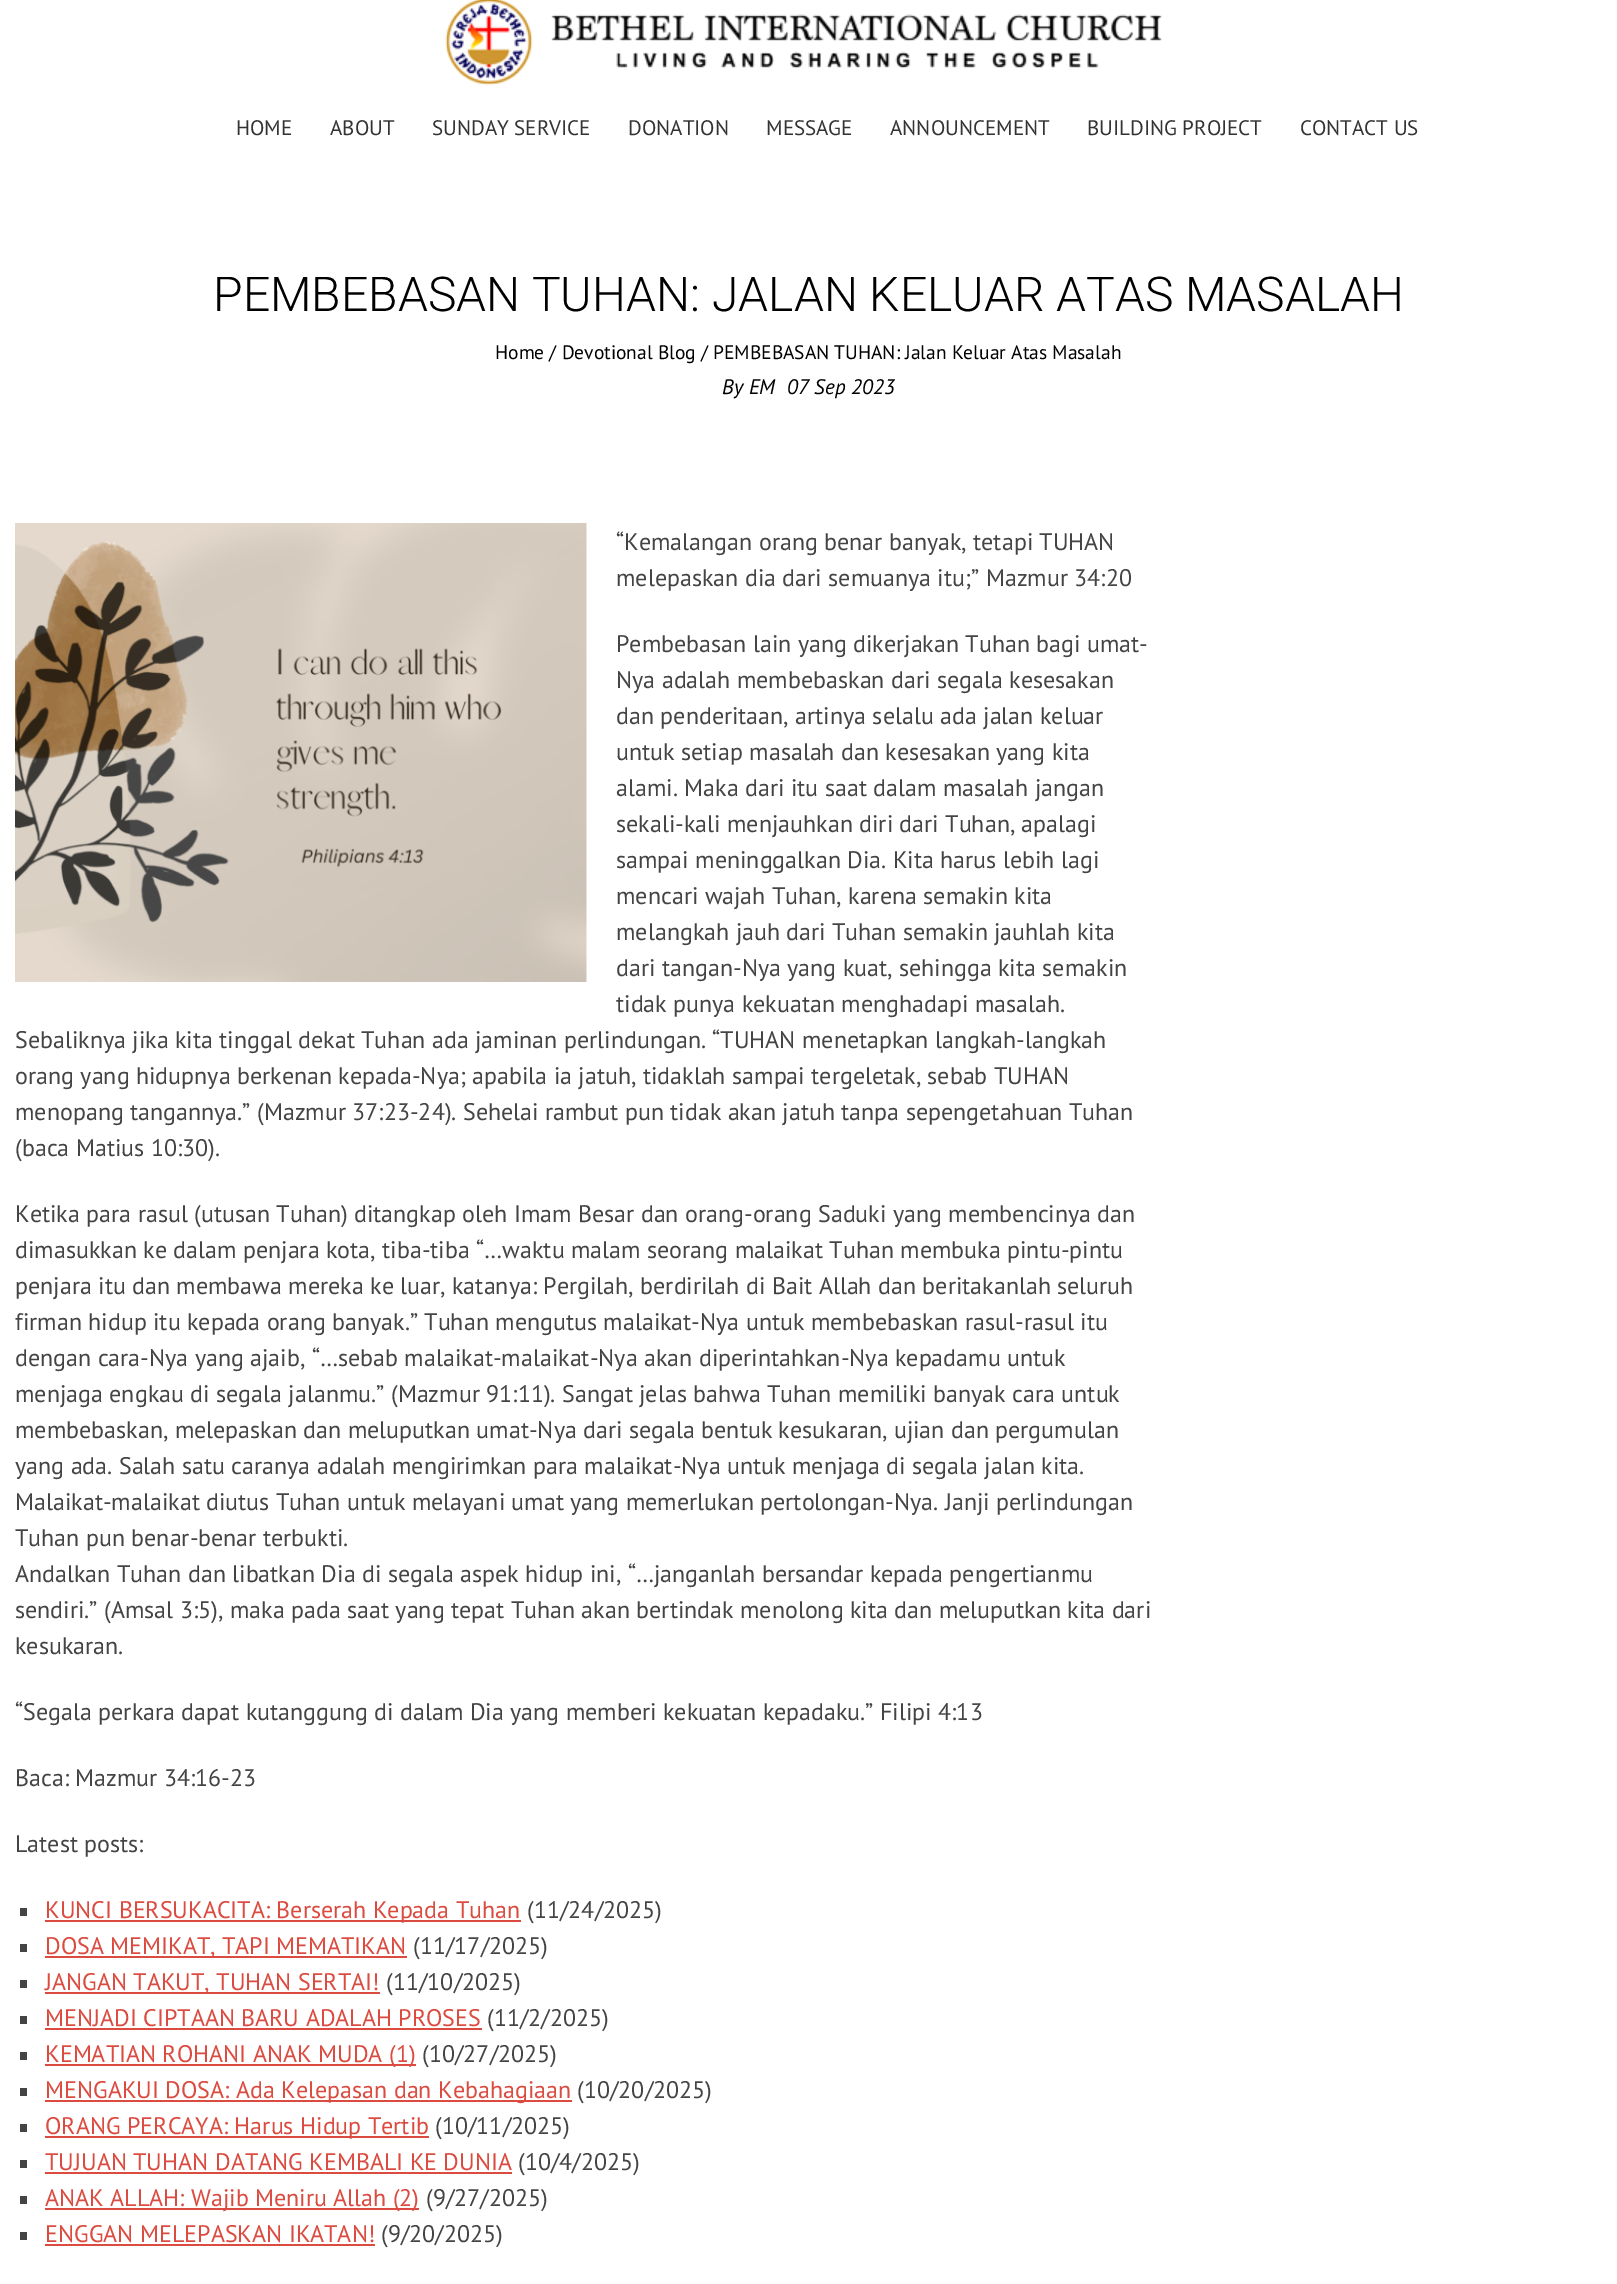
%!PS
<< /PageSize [1617 2284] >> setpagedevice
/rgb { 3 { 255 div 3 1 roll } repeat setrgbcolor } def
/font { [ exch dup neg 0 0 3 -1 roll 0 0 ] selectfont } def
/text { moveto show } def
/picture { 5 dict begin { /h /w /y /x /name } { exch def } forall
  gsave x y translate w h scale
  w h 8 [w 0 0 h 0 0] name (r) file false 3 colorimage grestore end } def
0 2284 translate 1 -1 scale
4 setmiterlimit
255 255 255 rgb
0 0 1617 2284 rectfill
(img_01.rgb) 445 0 717 86 picture
(img_02.rgb) 15 523 572 459 picture
68 68 68 rgb
20 1908 7 8 rectfill
219 75 63 rgb
45 1920 476 2 rectfill
68 68 68 rgb
20 1944 7 8 rectfill
219 75 63 rgb
45 1956 362 2 rectfill
68 68 68 rgb
20 1980 7 8 rectfill
219 75 63 rgb
45 1992 335 2 rectfill
68 68 68 rgb
20 2016 7 8 rectfill
219 75 63 rgb
45 2028 437 2 rectfill
68 68 68 rgb
20 2052 7 8 rectfill
219 75 63 rgb
45 2064 371 2 rectfill
68 68 68 rgb
20 2088 7 8 rectfill
219 75 63 rgb
45 2100 527 2 rectfill
68 68 68 rgb
20 2124 7 8 rectfill
219 75 63 rgb
45 2136 384 2 rectfill
68 68 68 rgb
20 2160 7 8 rectfill
219 75 63 rgb
45 2172 467 2 rectfill
68 68 68 rgb
20 2196 7 8 rectfill
219 75 63 rgb
45 2208 374 2 rectfill
68 68 68 rgb
20 2232 7 8 rectfill
219 75 63 rgb
45 2244 330 2 rectfill
/PTSans-Regular 21 font
51 51 51 rgb
(HOME) 236 135 text
(ABOUT) 330 135 text
(SUNDAY SERVICE) 432 135 text
(DONATION) 628 135 text
(MESSAGE) 766 135 text
(ANNOUNCEMENT) 890 135 text
(BUILDING PROJECT) 1087 135 text
(CONTACT US) 1300 135 text
/Roboto-Light 48 font
0 0 0 rgb
(PEMBEBASAN TUHAN: JALAN KELUAR ATAS MASALAH) 213 311 text
/PTSans-Regular 19.5 font
(Home / Devotional Blog / PEMBEBASAN TUHAN: Jalan Keluar Atas Masalah) 495 359 text
/PTSans-Italic 21 font
(By EM) 722 394 text
(07 Sep 2023) 787 394 text
/PTSans-Regular 24 font
68 68 68 rgb
(“Kemalangan orang benar banyak, tetapi TUHAN) 616 550 text
(melepaskan dia dari semuanya itu;” Mazmur 34:20) 616 586 text
(Pembebasan lain yang dikerjakan Tuhan bagi umat-) 616 652 text
(Nya adalah membebaskan dari segala kesesakan) 616 688 text
(dan penderitaan, artinya selalu ada jalan keluar) 616 724 text
(untuk setiap masalah dan kesesakan yang kita) 616 760 text
(alami. Maka dari itu saat dalam masalah jangan) 616 796 text
(sekali-kali menjauhkan diri dari Tuhan, apalagi) 616 832 text
(sampai meninggalkan Dia. Kita harus lebih lagi) 616 868 text
(mencari wajah Tuhan, karena semakin kita) 616 904 text
(melangkah jauh dari Tuhan semakin jauhlah kita) 616 940 text
(dari tangan-Nya yang kuat, sehingga kita semakin) 616 976 text
(tidak punya kekuatan menghadapi masalah.) 616 1012 text
(Sebaliknya jika kita tinggal dekat Tuhan ada jaminan perlindungan. “TUHAN menetapkan langkah-langkah) 15 1048 text
(orang yang hidupnya berkenan kepada-Nya; apabila ia jatuh, tidaklah sampai tergeletak, sebab TUHAN) 15 1084 text
(menopang tangannya.” \(Mazmur 37:23-24\). Sehelai rambut pun tidak akan jatuh tanpa sepengetahuan Tuhan) 15 1120 text
(\(baca Matius 10:30\).) 15 1156 text
(Ketika para rasul \(utusan Tuhan\) ditangkap oleh Imam Besar dan orang-orang Saduki yang membencinya dan) 15 1222 text
(dimasukkan ke dalam penjara kota, tiba-tiba “…waktu malam seorang malaikat Tuhan membuka pintu-pintu) 15 1258 text
(penjara itu dan membawa mereka ke luar, katanya: Pergilah, berdirilah di Bait Allah dan beritakanlah seluruh) 15 1294 text
(firman hidup itu kepada orang banyak.” Tuhan mengutus malaikat-Nya untuk membebaskan rasul-rasul itu) 15 1330 text
(dengan cara-Nya yang ajaib, “…sebab malaikat-malaikat-Nya akan diperintahkan-Nya kepadamu untuk) 15 1366 text
(menjaga engkau di segala jalanmu.” \(Mazmur 91:11\). Sangat jelas bahwa Tuhan memiliki banyak cara untuk) 15 1402 text
(membebaskan, melepaskan dan meluputkan umat-Nya dari segala bentuk kesukaran, ujian dan pergumulan) 15 1438 text
(yang ada. Salah satu caranya adalah mengirimkan para malaikat-Nya untuk menjaga di segala jalan kita.) 15 1474 text
(Malaikat-malaikat diutus Tuhan untuk melayani umat yang memerlukan pertolongan-Nya. Janji perlindungan) 15 1510 text
(Tuhan pun benar-benar terbukti.) 15 1546 text
(Andalkan Tuhan dan libatkan Dia di segala aspek hidup ini, “…janganlah bersandar kepada pengertianmu) 15 1582 text
(sendiri.” \(Amsal 3:5\), maka pada saat yang tepat Tuhan akan bertindak menolong kita dan meluputkan kita dari) 15 1618 text
(kesukaran.) 15 1654 text
(“Segala perkara dapat kutanggung di dalam Dia yang memberi kekuatan kepadaku.” Filipi 4:13) 15 1720 text
(Baca: Mazmur 34:16-23) 15 1786 text
(Latest posts:) 15 1852 text
219 75 63 rgb
(KUNCI BERSUKACITA: Berserah Kepada Tuhan) 45 1918 text
68 68 68 rgb
(\(11/24/2025\)) 527 1918 text
219 75 63 rgb
(DOSA MEMIKAT, TAPI MEMATIKAN) 45 1954 text
68 68 68 rgb
(\(11/17/2025\)) 413 1954 text
219 75 63 rgb
(JANGAN TAKUT, TUHAN SERTAI!) 45 1990 text
68 68 68 rgb
(\(11/10/2025\)) 386 1990 text
219 75 63 rgb
(MENJADI CIPTAAN BARU ADALAH PROSES) 45 2026 text
68 68 68 rgb
(\(11/2/2025\)) 487 2026 text
219 75 63 rgb
(KEMATIAN ROHANI ANAK MUDA \(1\)) 45 2062 text
68 68 68 rgb
(\(10/27/2025\)) 422 2062 text
219 75 63 rgb
(MENGAKUI DOSA: Ada Kelepasan dan Kebahagiaan) 45 2098 text
68 68 68 rgb
(\(10/20/2025\)) 577 2098 text
219 75 63 rgb
(ORANG PERCAYA: Harus Hidup Tertib) 45 2134 text
68 68 68 rgb
(\(10/11/2025\)) 435 2134 text
219 75 63 rgb
(TUJUAN TUHAN DATANG KEMBALI KE DUNIA) 45 2170 text
68 68 68 rgb
(\(10/4/2025\)) 518 2170 text
219 75 63 rgb
(ANAK ALLAH: Wajib Meniru Allah \(2\)) 45 2206 text
68 68 68 rgb
(\(9/27/2025\)) 426 2206 text
219 75 63 rgb
(ENGGAN MELEPASKAN IKATAN!) 45 2242 text
68 68 68 rgb
(\(9/20/2025\)) 381 2242 text
showpage
